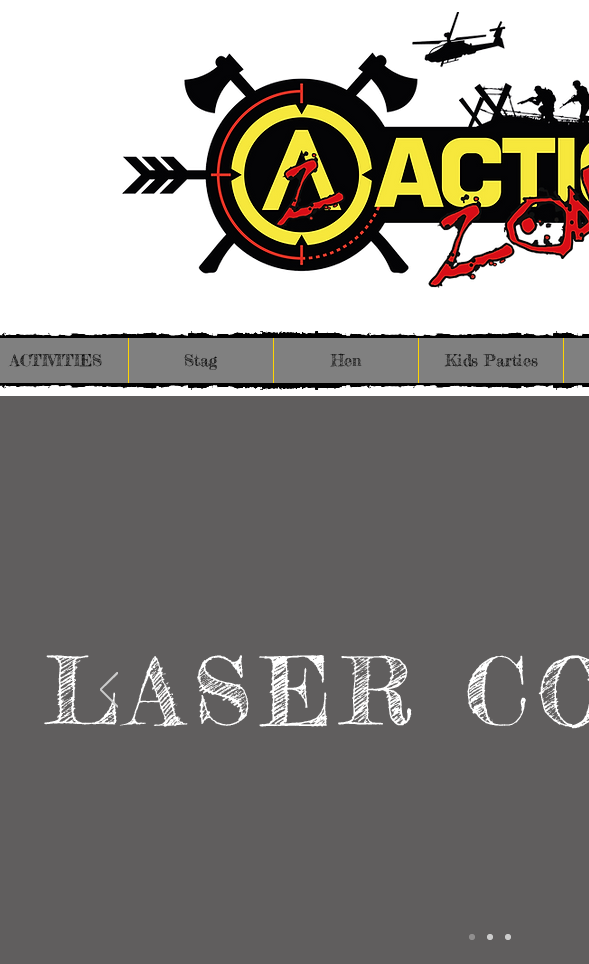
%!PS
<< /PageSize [589 964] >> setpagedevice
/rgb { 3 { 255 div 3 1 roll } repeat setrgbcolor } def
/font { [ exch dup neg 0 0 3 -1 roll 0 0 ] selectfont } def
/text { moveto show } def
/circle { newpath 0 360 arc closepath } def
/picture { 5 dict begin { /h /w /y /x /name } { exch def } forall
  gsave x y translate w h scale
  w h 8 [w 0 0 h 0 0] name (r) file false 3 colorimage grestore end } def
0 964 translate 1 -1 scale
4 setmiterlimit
255 255 255 rgb
0 0 589 964 rectfill
(img_01.rgb) 122 12 467 276 picture
(img_02.rgb) 0 331 589 7 picture
128 128 128 rgb
0 338 589 45 rectfill
255 213 0 rgb
128 338 1 45 rectfill
273 338 1 45 rectfill
418 338 1 45 rectfill
563 338 1 45 rectfill
(img_03.rgb) 0 383 589 7 picture
96 94 94 rgb
0 396 589 568 rectfill
144 142 142 rgb
472 937 3 circle fill
204 204 204 rgb
490 937 3 circle fill
508 937 3 circle fill
/FrederickatheGreat-Regular 16 font
0 0 0 rgb
(ACTIVITIES) 10 366 text
(Stag) 184 366 text
(Hen) 331 366 text
(Kids Parties) 445 366 text
/FrederickatheGreat-Regular 93 font
255 255 255 rgb
45 725 moveto 9.25 0 (LASER CO) ashow
gsave
100 672 18 36 rectclip
204 204 204 rgb
0.9 setlinewidth
117.5 707 moveto -17.5 -17.5 rlineto 17.5 -17.5 rlineto 0.5 1 rlineto -17 16.5 rlineto 17 17 rlineto closepath stroke
grestore
showpage
